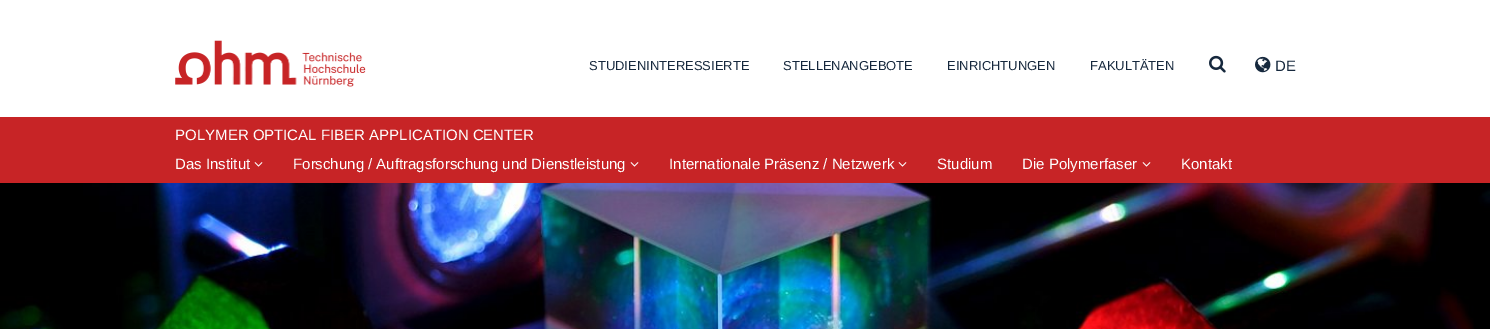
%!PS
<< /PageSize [1490 329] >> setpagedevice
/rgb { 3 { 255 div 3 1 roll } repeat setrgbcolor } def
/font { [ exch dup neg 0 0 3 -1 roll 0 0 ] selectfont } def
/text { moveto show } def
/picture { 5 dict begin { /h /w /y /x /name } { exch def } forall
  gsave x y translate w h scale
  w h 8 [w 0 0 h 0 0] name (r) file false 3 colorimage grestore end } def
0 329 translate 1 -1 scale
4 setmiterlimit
255 255 255 rgb
0 0 1490 329 rectfill
(img_01.rgb) 175 40 191 47 picture
(img_02.rgb) 1209 55 17 18 picture
(img_03.rgb) 1255 56 16 17 picture
199 36 38 rgb
0 117 1490 66 rectfill
(img_04.rgb) 254 162 9 5 picture
(img_04.rgb) 630 162 9 5 picture
(img_04.rgb) 898 162 9 5 picture
(img_04.rgb) 1142 162 9 5 picture
(img_05.rgb) 0 183 1490 146 picture
/LiberationSans-Regular 13 font
22 40 61 rgb
(STUDIENINTERESSIERTE) 589 70 text
(STELLENANGEBOTE) 783 70 text
(EINRICHTUNGEN) 947 70 text
(FAKULTÄTEN) 1090 70 text
/LiberationSans-Regular 15 font
(DE) 1275 71 text
255 255 255 rgb
(POLYMER OPTICAL FIBER APPLICATION CENTER) 175 140 text
(Das Institut) 175 169 text
(Forschung / Auftragsforschung und Dienstleistung) 293 169 text
(Internationale Präsenz / Netzwerk) 669 169 text
(Studium) 937 169 text
(Die Polymerfaser) 1022 169 text
(Kontakt) 1181 169 text
showpage
